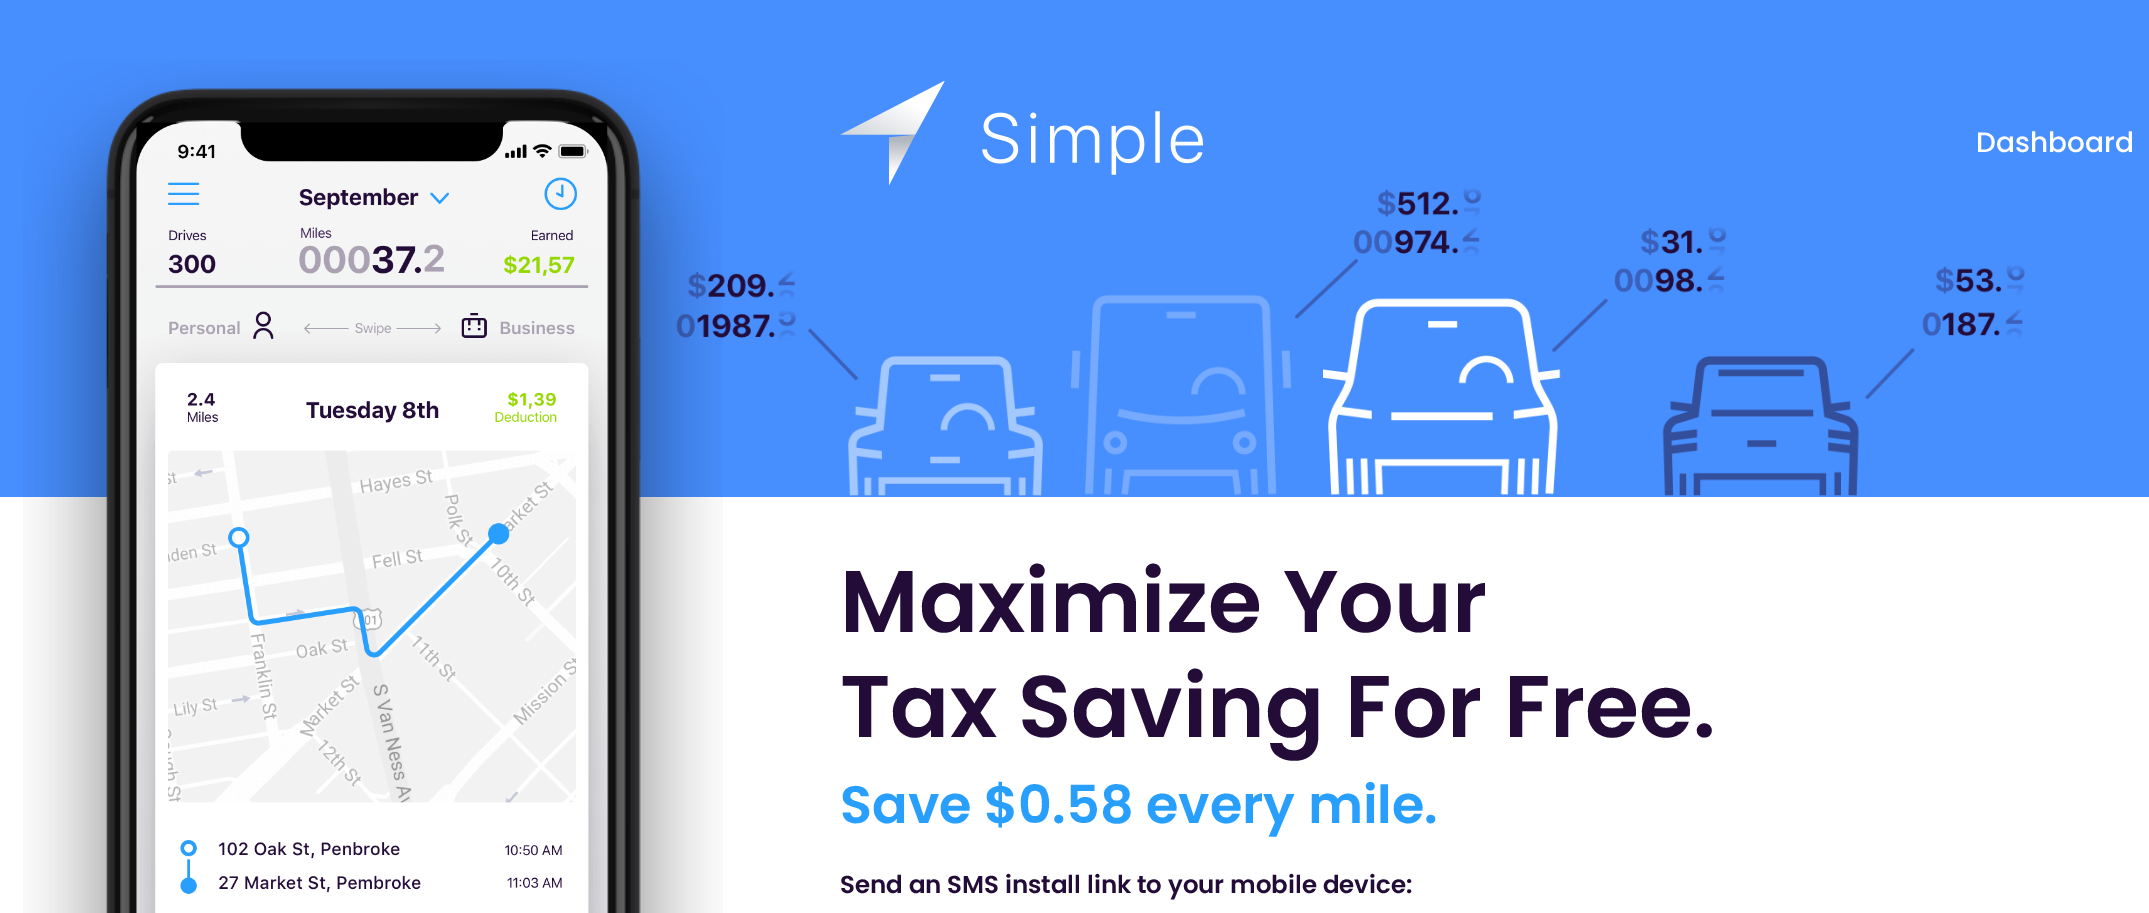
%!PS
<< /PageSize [2149 913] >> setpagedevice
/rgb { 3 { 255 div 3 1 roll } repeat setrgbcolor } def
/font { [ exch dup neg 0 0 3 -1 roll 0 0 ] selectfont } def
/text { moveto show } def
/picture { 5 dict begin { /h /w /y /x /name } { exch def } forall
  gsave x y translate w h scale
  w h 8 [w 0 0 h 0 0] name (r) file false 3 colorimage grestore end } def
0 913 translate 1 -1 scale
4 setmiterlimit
255 255 255 rgb
0 0 2149 913 rectfill
71 142 255 rgb
0 0 2149 497 rectfill
(img_04.rgb) 676 188 1349 308 picture
(img_01.rgb) 23 60 700 853 picture
(img_02.rgb) 136 122 472 791 picture
(img_03.rgb) 840 81 363 105 picture
/Poppins-Medium 28 font
255 255 255 rgb
(Dashboard) 1976 152 text
/Poppins-SemiBold 87.5 font
36 12 57 rgb
(Maximize Your) 840 632 text
(Tax Saving For Free.) 840 737 text
/Poppins-SemiBold 52.5 font
41 159 253 rgb
(Save $0.58 every mile.) 840 823 text
/Poppins-SemiBold 24.5 font
36 12 57 rgb
(Send an SMS install link to your mobile device:) 840 893 text
showpage
